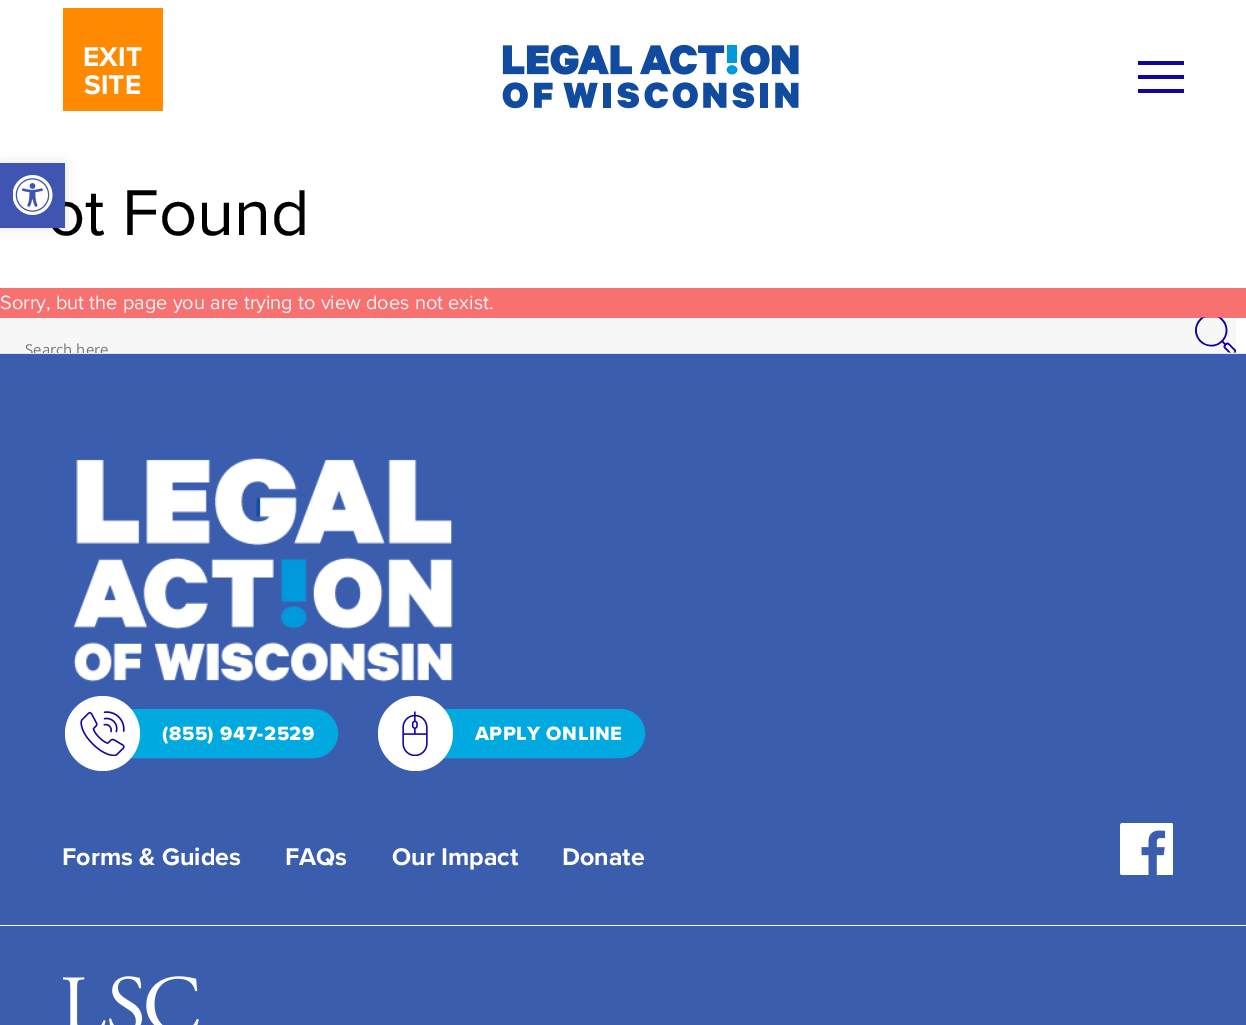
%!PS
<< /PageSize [1246 1025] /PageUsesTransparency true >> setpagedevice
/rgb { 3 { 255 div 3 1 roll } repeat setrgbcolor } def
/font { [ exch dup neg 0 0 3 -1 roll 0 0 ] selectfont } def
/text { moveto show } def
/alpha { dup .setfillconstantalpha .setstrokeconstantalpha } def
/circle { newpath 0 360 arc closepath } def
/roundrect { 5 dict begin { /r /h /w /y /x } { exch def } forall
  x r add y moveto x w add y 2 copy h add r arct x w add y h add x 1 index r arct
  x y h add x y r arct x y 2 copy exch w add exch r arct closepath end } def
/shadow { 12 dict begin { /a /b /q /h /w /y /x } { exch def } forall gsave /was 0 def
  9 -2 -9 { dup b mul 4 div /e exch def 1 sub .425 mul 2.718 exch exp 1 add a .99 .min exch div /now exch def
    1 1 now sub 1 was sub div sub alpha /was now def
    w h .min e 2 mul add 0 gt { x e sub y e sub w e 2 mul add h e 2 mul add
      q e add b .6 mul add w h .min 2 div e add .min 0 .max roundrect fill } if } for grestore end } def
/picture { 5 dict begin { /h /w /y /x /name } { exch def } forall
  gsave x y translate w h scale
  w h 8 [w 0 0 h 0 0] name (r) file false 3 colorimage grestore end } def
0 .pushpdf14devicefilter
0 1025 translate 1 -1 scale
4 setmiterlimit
255 255 255 rgb
0 0 1246 1025 rectfill
255 137 0 rgb
63 8 100 103 rectfill
(img_01.rgb) 502 44 297 65 picture
16 6 159 rgb
1138 61 46 4 rectfill
1138 75 46 4 rectfill
1138 89 46 4 rectfill
248 113 113 rgb
0 288 1246 30 rectfill
228 228 228 rgb
0 353 1246 1 rectfill
247 247 247 rgb
0 318 1236 35 rectfill
gsave
1211 318 35 35 rectclip
0.64 alpha
255 255 255 rgb
1088 194 moveto 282 0 rlineto 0 282 rlineto -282 0 rlineto closepath 1210 319 moveto 35 0 rlineto 0 35 rlineto -35 0 rlineto closepath eofill
grestore
(img_02.rgb) 1195 317 41 36 picture
58 93 174 rgb
0 354 1246 671 rectfill
255 255 255 rgb
0 925 1246 1 rectfill
(img_03.rgb) 73 458 380 224 picture
0 169 224 rgb
101.5 710.5 235 46 23 roundrect gsave fill grestore
3 setlinewidth
stroke
255 255 255 rgb
102.5 733.5 37.5 circle fill
(img_04.rgb) 80 711 45 45 picture
0 169 224 rgb
414.5 710.5 229 46 23 roundrect gsave fill grestore
stroke
255 255 255 rgb
415.5 733.5 37.5 circle fill
(img_05.rgb) 402 711 26 45 picture
(img_06.rgb) 1120 823 53 52 picture
(img_07.rgb) 63 976 136 49 picture
0 0 0 rgb
0 163 65 65 0 6 0.1 shadow
/ProximaNova-Bold 28 font
255 255 255 rgb
(EXIT) 83 66 text
(SITE) 84 94 text
/ProximaNova-Regular 67 font
0 0 0 rgb
(ot Found) 47 235 text
/ProximaNova-Regular 20 font
254 242 242 rgb
(Sorry, but the page you are trying to view does not exist.) 0 309 text
gsave
25 339 1211 14 rectclip
/OpenSans-Regular 15 font
121 121 121 rgb
(Search here) 25 355 text
grestore
/ProximaNova-ExtraBold 20 font
255 255 255 rgb
162 740 moveto 0.5 0 (\(855\) 947-2529) ashow
475 740 moveto 0.5 0 (APPLY ONLINE) ashow
/ProximaNova-Bold 25 font
(Forms & Guides) 62 865 text
(FAQs) 285 865 text
(Our Impact) 392 865 text
(Donate) 562 865 text
64 84 178 rgb
0 163 65 65 rectfill
(img_08.rgb) 13 175 40 40 picture
.poppdf14devicefilter showpage
